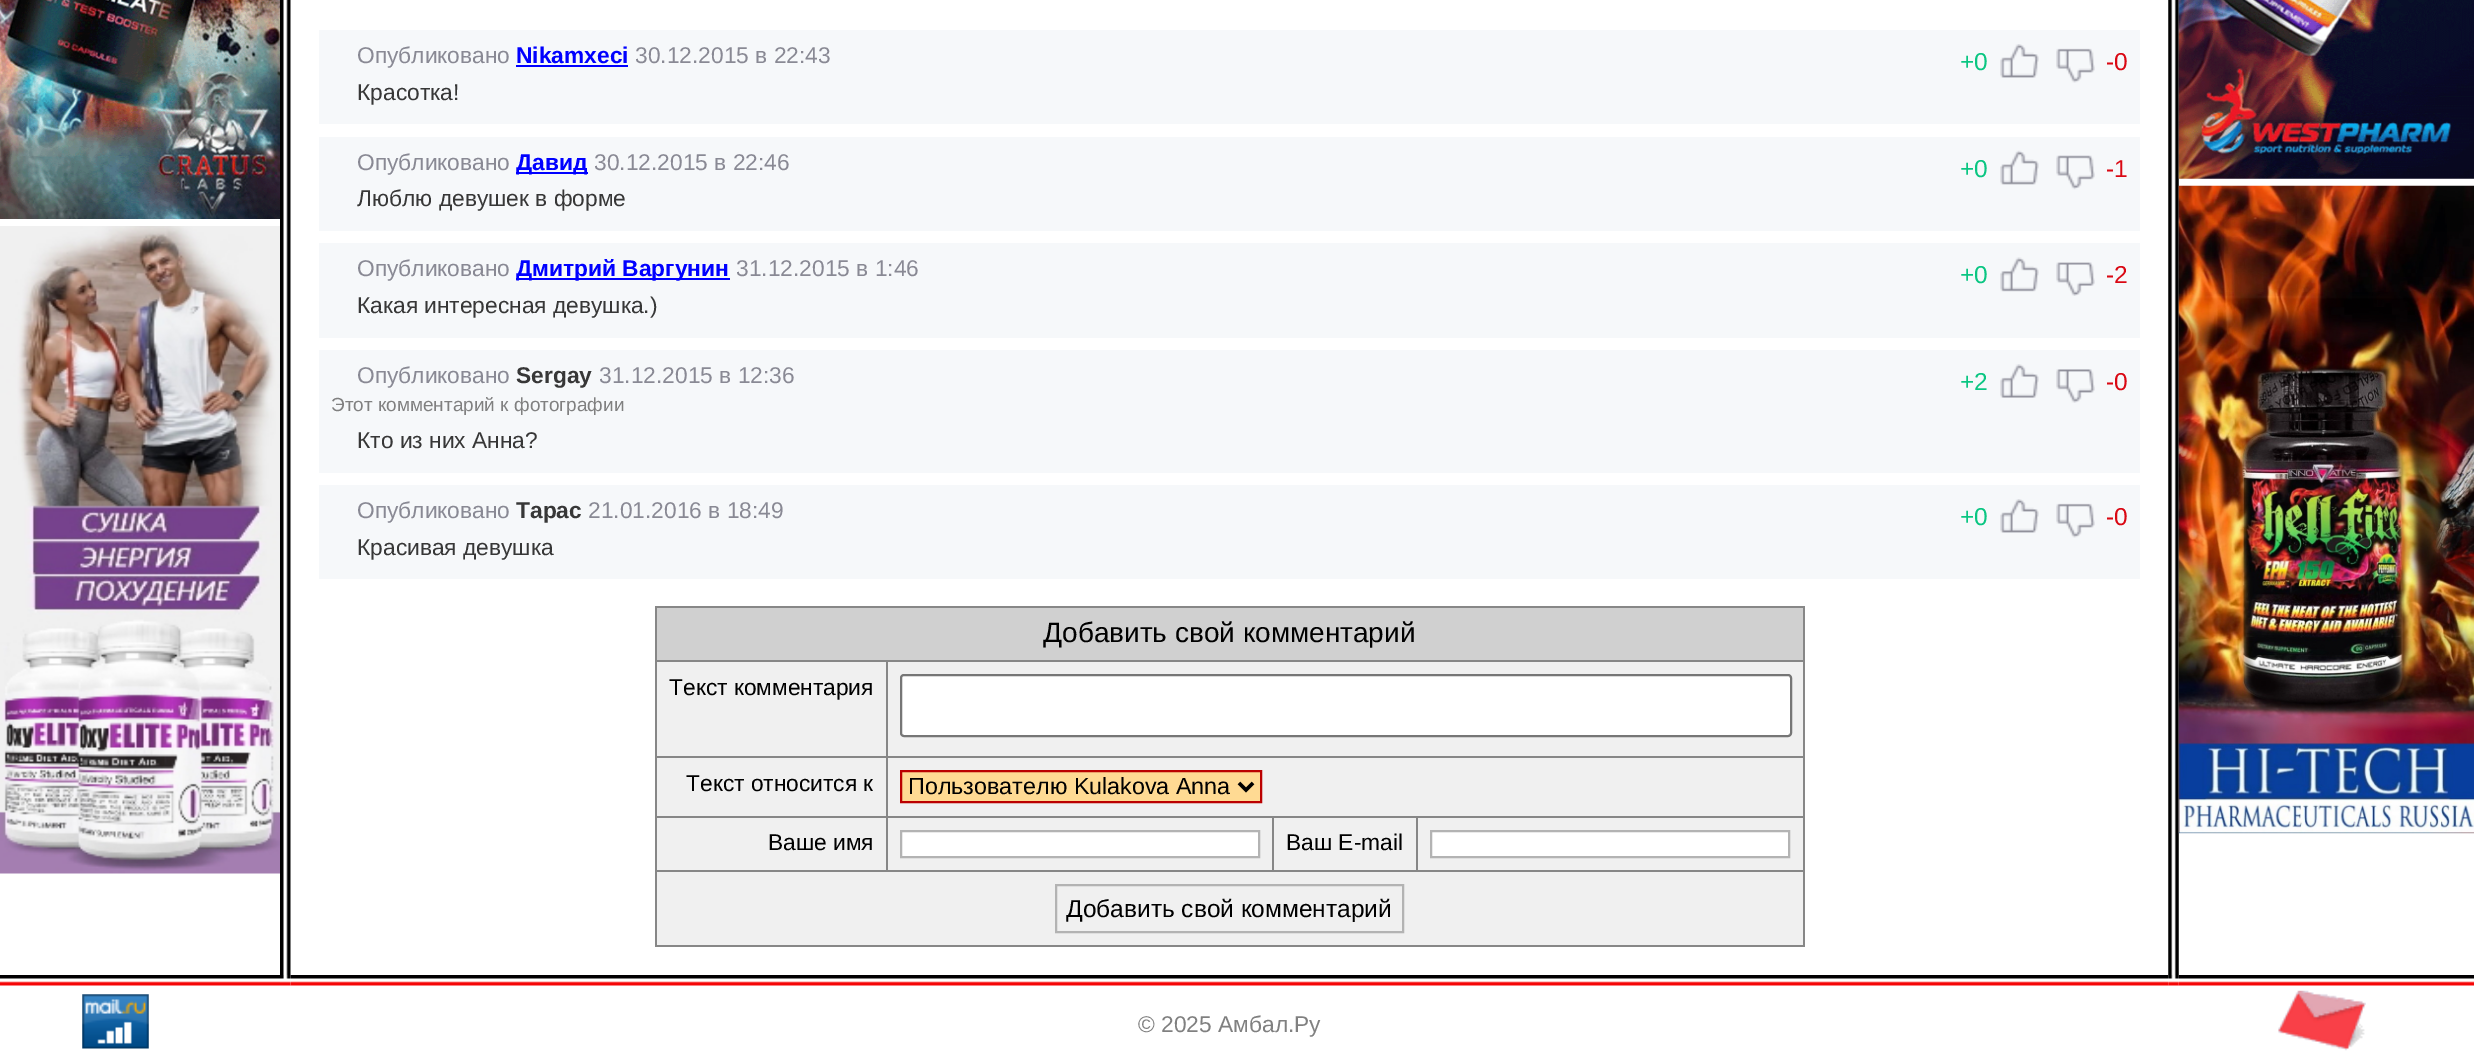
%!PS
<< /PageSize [2474 1063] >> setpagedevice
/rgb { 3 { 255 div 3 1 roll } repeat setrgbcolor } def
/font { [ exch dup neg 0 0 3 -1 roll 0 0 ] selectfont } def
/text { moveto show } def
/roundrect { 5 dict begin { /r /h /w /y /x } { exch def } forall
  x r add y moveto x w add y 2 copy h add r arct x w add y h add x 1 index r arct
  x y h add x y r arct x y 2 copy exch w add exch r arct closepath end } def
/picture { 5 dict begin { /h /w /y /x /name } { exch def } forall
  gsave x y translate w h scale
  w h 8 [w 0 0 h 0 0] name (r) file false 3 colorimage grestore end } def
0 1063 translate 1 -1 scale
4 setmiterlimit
255 255 255 rgb
0 0 2474 1063 rectfill
(img_01.rgb) 0 0 280 219 picture
(img_02.rgb) 0 226 280 648 picture
(img_03.rgb) 280 0 11 975 picture
246 248 250 rgb
319 30 1821 94 rectfill
0 0 255 rgb
516 65 112 2 rectfill
(img_04.rgb) 2000 44 39 34 picture
(img_05.rgb) 2056 48 39 35 picture
246 248 250 rgb
319 137 1821 94 rectfill
0 0 255 rgb
516 172 72 2 rectfill
(img_06.rgb) 2000 150 39 35 picture
(img_07.rgb) 2056 155 39 35 picture
246 248 250 rgb
319 243 1821 95 rectfill
0 0 255 rgb
516 278 214 2 rectfill
(img_08.rgb) 2000 257 39 35 picture
(img_09.rgb) 2056 262 39 34 picture
246 248 250 rgb
319 350 1821 123 rectfill
(img_10.rgb) 2000 364 39 34 picture
(img_11.rgb) 2056 369 39 34 picture
319 485 1821 94 rectfill
(img_04.rgb) 2000 499 39 34 picture
(img_05.rgb) 2056 503 39 35 picture
208 208 208 rgb
657 608 1146 52 rectfill
135 135 135 rgb
655 606 1149 2 rectfill
886 660 918 2 rectfill
886 756 918 2 rectfill
1416 816 388 2 rectfill
655 870 1149 2 rectfill
1803 870 2 77 rectfill
1803 816 2 56 rectfill
1803 756 2 61 rectfill
1803 660 2 98 rectfill
1803 606 2 56 rectfill
1416 816 2 56 rectfill
1272 816 146 2 rectfill
1272 816 2 56 rectfill
886 816 388 2 rectfill
886 816 2 56 rectfill
655 816 232 2 rectfill
886 756 2 61 rectfill
655 756 232 2 rectfill
886 660 2 98 rectfill
655 660 232 2 rectfill
655 945 1149 2 rectfill
655 870 2 77 rectfill
655 816 2 56 rectfill
655 756 2 61 rectfill
655 660 2 98 rectfill
655 606 2 56 rectfill
240 240 240 rgb
657 662 229 94 rectfill
888 662 915 94 rectfill
255 255 255 rgb
901 675 890 61 3 roundrect gsave fill grestore
118 118 118 rgb
2 setlinewidth
stroke
240 240 240 rgb
657 758 229 58 rectfill
888 758 915 58 rectfill
255 218 147 rgb
901 771 moveto 360 0 rlineto 0 31 rlineto -360 0 rlineto closepath gsave fill grestore
187 0 0 rgb
stroke
0 0 0 rgb
3.5 setlinewidth
1239 783 moveto 7 7 rlineto 7 -7 rlineto stroke
240 240 240 rgb
657 818 229 52 rectfill
888 818 384 52 rectfill
255 255 255 rgb
901 831 moveto 358 0 rlineto 0 26 rlineto -358 0 rlineto closepath gsave fill grestore
179 179 179 rgb
2 setlinewidth
stroke
240 240 240 rgb
1274 818 142 52 rectfill
1418 818 385 52 rectfill
255 255 255 rgb
1431 831 moveto 358 0 rlineto 0 26 rlineto -358 0 rlineto closepath gsave fill grestore
179 179 179 rgb
stroke
240 240 240 rgb
657 872 1146 73 rectfill
179 179 179 rgb
1056 885 347 47 rectstroke
(img_12.rgb) 2168 0 11 975 picture
(img_13.rgb) 2178 0 296 179 picture
(img_14.rgb) 2178 185 296 649 picture
(img_15.rgb) 0 975 280 11 picture
(img_17.rgb) 290 975 1879 11 picture
(img_16.rgb) 280 975 11 11 picture
(img_19.rgb) 2178 975 296 11 picture
(img_18.rgb) 2168 975 11 11 picture
(img_20.rgb) 82 994 67 55 picture
(img_21.rgb) 2278 990 88 61 picture
/LiberationSans-Regular 22.75 font
137 137 148 rgb
(Опубликовано) 357 63 text
/LiberationSans-Bold 22.75 font
0 0 255 rgb
(Nikamxeci) 516 63 text
/LiberationSans-Regular 22.75 font
137 137 148 rgb
(30.12.2015 в 22:43) 635 63 text
/LiberationSans-Regular 24.5 font
10 198 130 rgb
(+0) 1960 70 text
218 8 19 rgb
(-0) 2106 70 text
/LiberationSans-Regular 22.75 font
55 55 55 rgb
(Красотка!) 357 100 text
137 137 148 rgb
(Опубликовано) 357 170 text
/LiberationSans-Bold 22.75 font
0 0 255 rgb
(Давид) 516 170 text
/LiberationSans-Regular 22.75 font
137 137 148 rgb
(30.12.2015 в 22:46) 594 170 text
/LiberationSans-Regular 24.5 font
10 198 130 rgb
(+0) 1960 177 text
218 8 19 rgb
(-1) 2106 177 text
/LiberationSans-Regular 22.75 font
55 55 55 rgb
(Люблю девушек в форме) 357 206 text
137 137 148 rgb
(Опубликовано) 357 276 text
/LiberationSans-Bold 22.75 font
0 0 255 rgb
(Дмитрий Варгунин) 516 276 text
/LiberationSans-Regular 22.75 font
137 137 148 rgb
(31.12.2015 в 1:46) 736 276 text
/LiberationSans-Regular 24.5 font
10 198 130 rgb
(+0) 1960 283 text
218 8 19 rgb
(-2) 2106 283 text
/LiberationSans-Regular 22.75 font
55 55 55 rgb
(Какая интересная девушка.\)) 357 313 text
137 137 148 rgb
(Опубликовано) 357 383 text
/LiberationSans-Bold 22.75 font
55 55 55 rgb
(Sergay) 516 383 text
/LiberationSans-Regular 22.75 font
137 137 148 rgb
(31.12.2015 в 12:36) 599 383 text
/LiberationSans-Regular 24.5 font
10 198 130 rgb
(+2) 1960 390 text
218 8 19 rgb
(-0) 2106 390 text
/LiberationSans-Regular 19 font
128 128 128 rgb
(Этот комментарий к фотографии) 331 411 text
/LiberationSans-Regular 22.75 font
55 55 55 rgb
(Кто из них Анна?) 357 448 text
137 137 148 rgb
(Опубликовано) 357 518 text
/LiberationSans-Bold 22.75 font
55 55 55 rgb
(Тарас) 516 518 text
/LiberationSans-Regular 22.75 font
137 137 148 rgb
(21.01.2016 в 18:49) 588 518 text
/LiberationSans-Regular 24.5 font
10 198 130 rgb
(+0) 1960 525 text
218 8 19 rgb
(-0) 2106 525 text
/LiberationSans-Regular 22.75 font
55 55 55 rgb
(Красивая девушка) 357 555 text
/LiberationSans-Regular 28 font
0 0 0 rgb
(Добавить свой комментарий) 1043 642 text
/LiberationSans-Regular 22.75 font
(Текст комментария) 669 695 text
(Текст относится к) 686 791 text
/LiberationSans-Regular 23.3 font
(Пользователю Kulakova Anna) 908 794 text
/LiberationSans-Regular 22.75 font
(Ваше имя) 768 850 text
(Ваш E-mail) 1286 850 text
/LiberationSans-Regular 24.5 font
(Добавить свой комментарий) 1066 917 text
/LiberationSans-Regular 22.75 font
128 128 128 rgb
(© 2025 Амбал.Ру) 1138 1032 text
showpage
